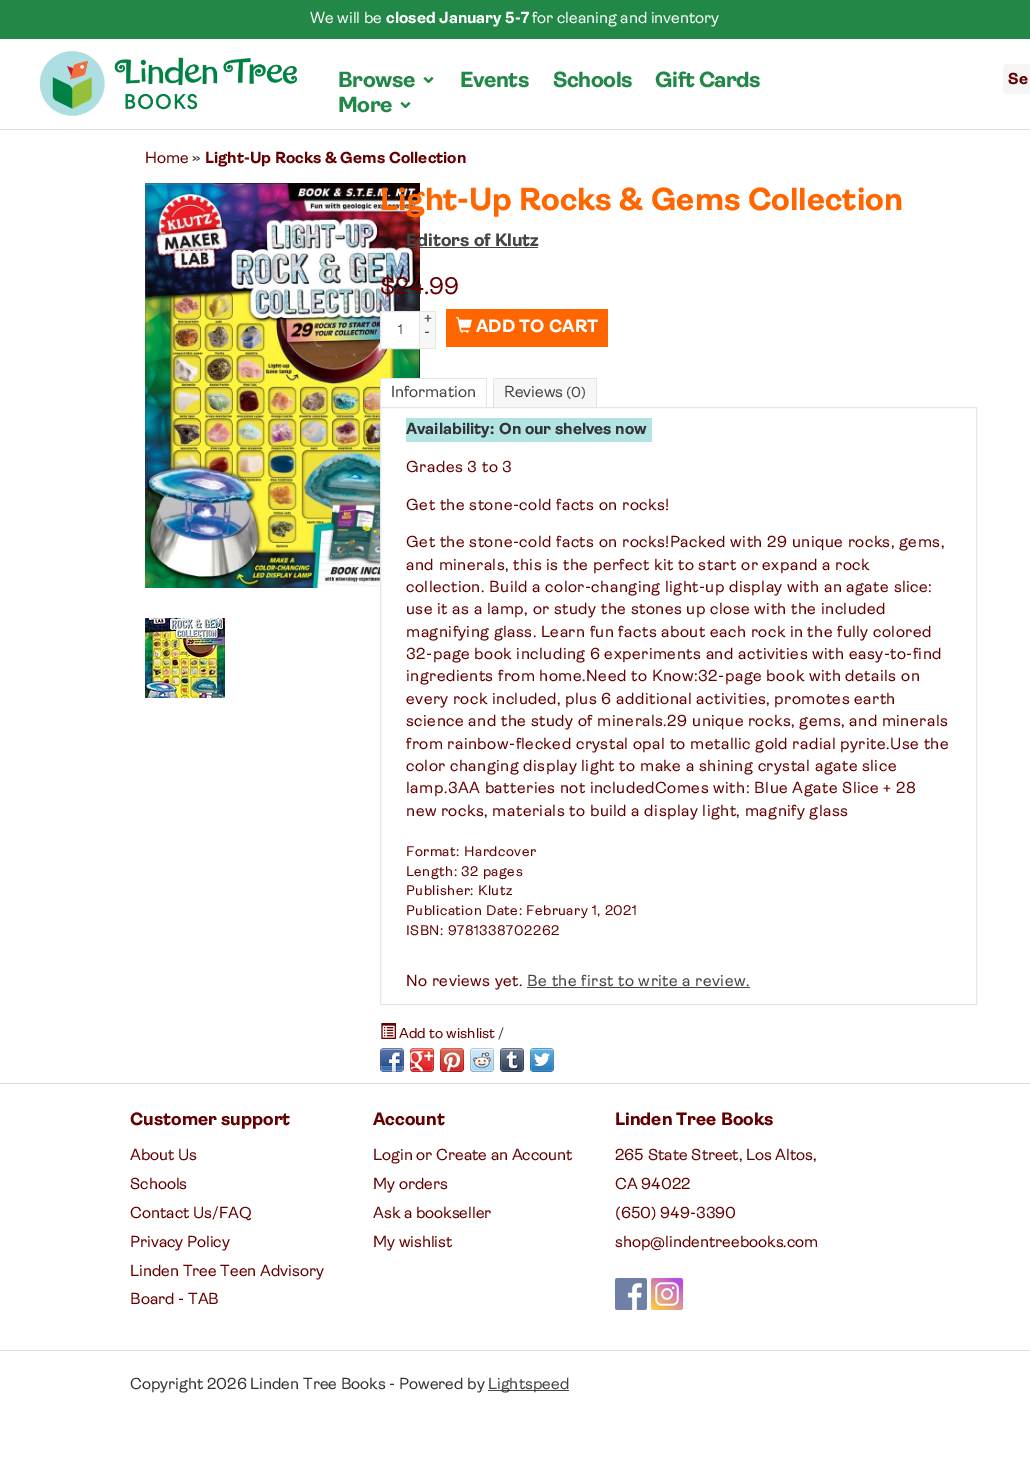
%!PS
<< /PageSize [1030 1477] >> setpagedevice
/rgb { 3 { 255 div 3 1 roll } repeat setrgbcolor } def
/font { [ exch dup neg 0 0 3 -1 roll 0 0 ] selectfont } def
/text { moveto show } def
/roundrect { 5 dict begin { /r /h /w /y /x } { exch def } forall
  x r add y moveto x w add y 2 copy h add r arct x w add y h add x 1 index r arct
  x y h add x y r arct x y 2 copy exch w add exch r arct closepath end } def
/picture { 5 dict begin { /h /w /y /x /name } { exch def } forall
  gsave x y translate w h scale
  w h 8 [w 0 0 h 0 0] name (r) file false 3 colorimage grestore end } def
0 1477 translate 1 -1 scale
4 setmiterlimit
255 255 255 rgb
0 0 1030 1477 rectfill
34 136 72 rgb
0 0 1030 39 rectfill
221 221 221 rgb
0 129 1030 1 rectfill
(img_01.rgb) 40 51 257 65 picture
245 245 245 rgb
1003 64 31 30 4 roundrect fill
(img_02.rgb) 145 183 275 405 picture
(img_03.rgb) 145 618 80 80 picture
68 68 68 rgb
406 247 132 1 rectfill
255 255 255 rgb
380.5 311.5 moveto 39 0 rlineto 0 37 rlineto -39 0 rlineto closepath gsave fill grestore
229 229 229 rgb
stroke
247 247 247 rgb
420 312 15 36 rectfill
229 229 229 rgb
420 311 16 1 rectfill
435 311 1 38 rectfill
420 348 16 1 rectfill
255 102 0 rgb
446 309 162 38 rectfill
(img_04.rgb) 456 317 16 16 picture
255 255 255 rgb
381 379 39 28 rectfill
229 229 229 rgb
380 378 107 1 rectfill
486 378 1 30 rectfill
380 378 1 30 rectfill
247 247 247 rgb
494 379 102 28 rectfill
229 229 229 rgb
493 378 104 1 rectfill
596 378 1 30 rectfill
493 378 1 30 rectfill
255 255 255 rgb
381 408 39 180 rectfill
229 229 229 rgb
380.5 407.5 596 597 rectstroke
177 228 227 rgb
406 418 246 24 rectfill
68 68 68 rgb
527 987 223 1 rectfill
(img_05.rgb) 381 1023 15 16 picture
(img_06.rgb) 380 1048 24 24 picture
(img_07.rgb) 410 1048 24 24 picture
(img_08.rgb) 440 1048 24 24 picture
(img_09.rgb) 470 1048 24 24 picture
(img_10.rgb) 500 1048 24 24 picture
(img_11.rgb) 530 1048 24 24 picture
221 221 221 rgb
0 1083 1030 1 rectfill
(img_12.rgb) 615 1278 32 32 picture
(img_13.rgb) 651 1278 32 32 picture
0 1350 1030 1 rectfill
68 68 68 rgb
488 1390 81 1 rectfill
/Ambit-Regular 16 font
255 255 255 rgb
(We will be) 310 23 text
/Ambit-Bold 16 font
(closed January 5-7) 386 23 text
/Ambit-Regular 16 font
(for cleaning and inventory) 532 23 text
/Ambit-Bold 22 font
34 136 72 rgb
338 87 moveto -0.5 0 (Browse) ashow
/DejaVuSans-Bold 22 font
419 83 moveto -0.5 0 (⌄) ashow
/Ambit-Bold 22 font
460 87 moveto -0.5 0 (Events) ashow
553 87 moveto -0.5 0 (Schools) ashow
655 87 moveto -0.5 0 (Gift Cards) ashow
338 112 moveto -0.5 0 (More) ashow
/DejaVuSans-Bold 22 font
396 108 moveto -0.5 0 (⌄) ashow
/Ambit-Bold 16 font
102 0 0 rgb
(Se) 1008 84 text
/Ambit-Regular 16 font
(Home) 145 163 text
51 51 51 rgb
(») 192 163 text
/Ambit-Bold 16 font
102 0 0 rgb
(Light-Up Rocks & Gems Collection) 205 163 text
/Ambit-Bold 32 font
255 102 0 rgb
(Light-Up Rocks & Gems Collection) 380 210 text
/Ambit-Bold 18 font
68 68 68 rgb
(Editors of Klutz) 406 246 text
/Ambit-Regular 24 font
102 0 0 rgb
($24.99) 380 294 text
/Ambit-Regular 14 font
81 80 80 rgb
(1) 398 334 text
/Ambit-Regular 16 font
68 68 68 rgb
(+) 424 323 text
(-) 424 337 text
/Ambit-Bold 18 font
255 255 255 rgb
(ADD TO CART) 476 332 text
/Ambit-Regular 16 font
68 68 68 rgb
(Information) 391 397 text
(Reviews) 504 397 text
/Ambit-Regular 14.5 font
(\(0\)) 566 397 text
/Ambit-Bold 16 font
51 51 51 rgb
(Availability:) 406 434 text
(On our shelves now) 499 434 text
/Ambit-Regular 16 font
102 0 0 rgb
406 472 moveto 0.5 0 (Grades 3 to 3) ashow
406 510 moveto 0.5 0 (Get the stone-cold facts on rocks!) ashow
406 547 moveto 0.5 0 (Get the stone-cold facts on rocks!Packed with 29 unique rocks, gems,) ashow
406 570 moveto 0.5 0 (and minerals, this is the perfect kit to start or expand a rock) ashow
406 592 moveto 0.5 0 (collection. Build a color-changing light-up display with an agate slice:) ashow
406 614 moveto 0.5 0 (use it as a lamp, or study the stones up close with the included) ashow
406 637 moveto 0.5 0 (magnifying glass. Learn fun facts about each rock in the fully colored) ashow
406 659 moveto 0.5 0 (32-page book including 6 experiments and activities with easy-to-find) ashow
406 681 moveto 0.5 0 (ingredients from home.Need to Know:32-page book with details on) ashow
406 704 moveto 0.5 0 (every rock included, plus 6 additional activities, promotes earth) ashow
406 726 moveto 0.5 0 (science and the study of minerals.29 unique rocks, gems, and minerals) ashow
406 749 moveto 0.5 0 (from rainbow-flecked crystal opal to metallic gold radial pyrite.Use the) ashow
406 771 moveto 0.5 0 (color changing display light to make a shining crystal agate slice) ashow
406 793 moveto 0.5 0 (lamp.3AA batteries not includedComes with: Blue Agate Slice + 28) ashow
406 816 moveto 0.5 0 (new rocks, materials to build a display light, magnify glass) ashow
/Ambit-Regular 14 font
406 856 moveto 0.5 0 (Format: Hardcover) ashow
406 876 moveto 0.5 0 (Length: 32 pages) ashow
406 895 moveto 0.5 0 (Publisher: Klutz) ashow
406 915 moveto 0.5 0 (Publication Date: February 1, 2021) ashow
406 935 moveto 0.5 0 (ISBN: 9781338702262) ashow
/Ambit-Regular 16 font
406 986 moveto 0.5 0 (No reviews yet.) ashow
68 68 68 rgb
527 986 moveto 0.5 0 (Be the first to write a review.) ashow
/Ambit-Regular 14.5 font
102 0 0 rgb
(Add to wishlist) 399 1038 text
51 51 51 rgb
(/) 498 1038 text
/Ambit-Bold 18 font
102 0 0 rgb
(Customer support) 130 1125 text
/Ambit-Regular 16 font
(About Us) 130 1160 text
(Schools) 130 1189 text
(Contact Us/FAQ) 130 1218 text
(Privacy Policy) 130 1247 text
(Linden Tree Teen Advisory) 130 1276 text
(Board - TAB) 130 1304 text
/Ambit-Bold 18 font
(Account) 373 1125 text
/Ambit-Regular 16 font
(Login or Create an Account) 373 1160 text
(My orders) 373 1189 text
(Ask a bookseller) 373 1218 text
(My wishlist) 373 1247 text
/Ambit-Bold 18 font
(Linden Tree Books) 615 1125 text
/Ambit-Regular 16 font
(265 State Street, Los Altos,) 615 1160 text
(CA 94022) 615 1189 text
(\(650\) 949-3390) 615 1218 text
(shop@lindentreebooks.com) 615 1247 text
51 51 51 rgb
(Copyright 2026 Linden Tree Books - Powered by) 130 1389 text
68 68 68 rgb
(Lightspeed) 488 1389 text
showpage
